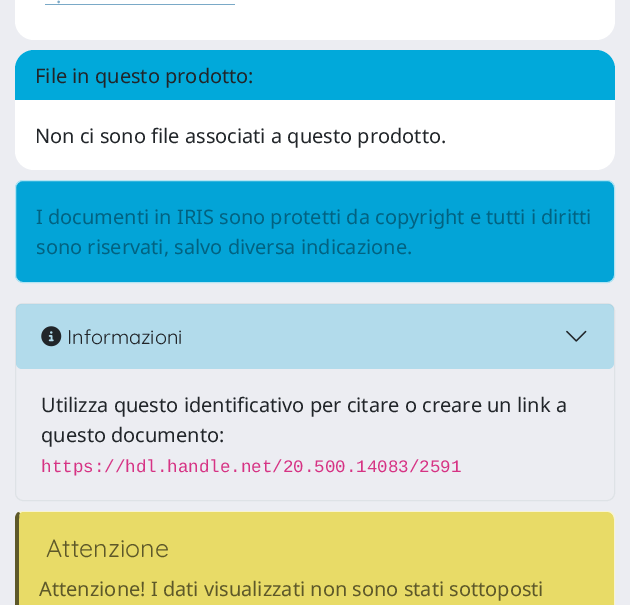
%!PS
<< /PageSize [630 605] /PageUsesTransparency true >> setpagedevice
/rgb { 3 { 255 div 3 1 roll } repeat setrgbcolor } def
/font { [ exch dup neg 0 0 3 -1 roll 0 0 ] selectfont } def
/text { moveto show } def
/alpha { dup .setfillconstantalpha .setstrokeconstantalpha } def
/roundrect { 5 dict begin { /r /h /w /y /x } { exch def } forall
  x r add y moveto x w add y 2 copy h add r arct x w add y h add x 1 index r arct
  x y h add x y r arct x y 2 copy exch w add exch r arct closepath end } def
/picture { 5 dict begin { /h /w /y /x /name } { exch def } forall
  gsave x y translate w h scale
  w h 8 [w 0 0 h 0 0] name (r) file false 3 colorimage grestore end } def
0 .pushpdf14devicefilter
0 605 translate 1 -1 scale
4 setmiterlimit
236 237 242 rgb
0 0 630 605 rectfill
255 255 255 rgb
15 -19 600 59 19 roundrect fill
122 169 199 rgb
45 4 190 1 rectfill
255 255 255 rgb
15 50 600 120 19 roundrect fill
1 169 218 rgb
34 50 moveto 562 0 rlineto 10.5 0 19 8.5 19 19 rcurveto 0 31 rlineto -600 0 rlineto 0 -31 rlineto 0 -10.5 8.5 -19 19 -19 rcurveto closepath fill
3 164 215 rgb
15.5 180.5 599 102 7.5 roundrect gsave fill grestore
179 228 243 rgb
stroke
222 226 230 rgb
15.5 303.5 599 197 7.5 roundrect stroke
0.25 alpha
3 164 215 rgb
16 304 598 65 6 roundrect fill
1 alpha
(img_01.rgb) 41 326 21 21 picture
(img_02.rgb) 566 330 21 12 picture
232 219 103 rgb
22 512 moveto 586 0 rlineto 3 0 6 3 6 7 rcurveto 0 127 rlineto 0 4 -3 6 -6 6 rcurveto -586 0 rlineto -2 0 -3 -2 -3 -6 rcurveto 0 -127 rlineto 0 -4 1 -7 3 -7 rcurveto closepath fill
248 244 209 rgb
22 512 moveto -2 1 rlineto -2 -1 rlineto 2 -1 rlineto 590 0 rlineto 3 2 rlineto -1 1 rlineto -1 -1 -2 -2 -4 -2 rcurveto closepath fill
615 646 moveto 0 -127 rlineto 0 -2 -1 -4 -2 -6 rcurveto -1 1 rlineto 1 1 2 3 2 5 rcurveto 0 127 rlineto 0 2 -1 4 -2 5 rcurveto 1 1 rlineto 1 -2 2 -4 2 -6 rcurveto closepath fill
93 88 41 rgb
15 519 moveto 0 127 rlineto 0 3 1 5 3 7 rcurveto 3 -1 rlineto -1 -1 -2 -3 -2 -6 rcurveto 0 -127 rlineto 0 -3 0 -5 1 -6 rcurveto -2 -1 rlineto -2 2 -3 4 -3 7 rcurveto closepath fill
/NotoSans-Regular 20 font
122 169 199 rgb
(.) 56 3 text
33 37 41 rgb
(File in questo prodotto:) 35 83 text
(Non ci sono file associati a questo prodotto.) 35 143 text
2 98 129 rgb
(I documenti in IRIS sono protetti da copyright e tutti i diritti) 36 224 text
(sono riservati, salvo diversa indicazione.) 36 254 text
/Quicksand-Light 20 font
33 37 41 rgb
(Informazioni) 67 344 text
/NotoSans-Regular 20 font
(Utilizza questo identificativo per citare o creare un link a) 41 412 text
(questo documento:) 41 442 text
/LiberationMono-Regular 17.5 font
214 51 132 rgb
(https://hdl.handle.net/20.500.14083/2591) 41 472 text
/Quicksand-Light 25 font
93 88 41 rgb
(Attenzione) 46 557 text
/NotoSans-Regular 20 font
(Attenzione! I dati visualizzati non sono stati sottoposti) 39 596 text
.poppdf14devicefilter showpage
